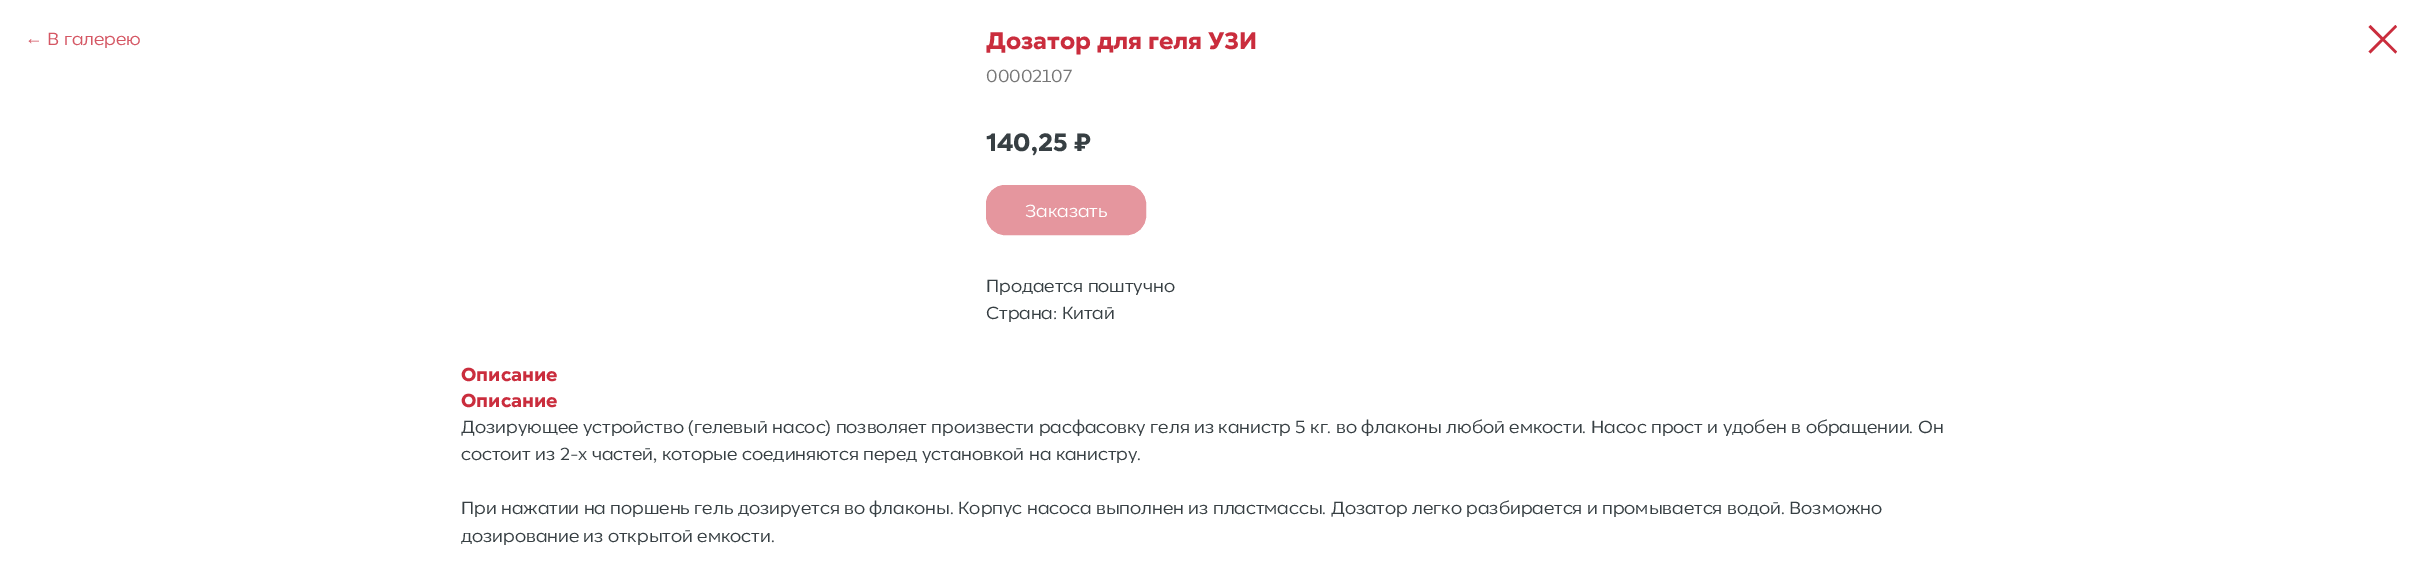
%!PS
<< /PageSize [2422 588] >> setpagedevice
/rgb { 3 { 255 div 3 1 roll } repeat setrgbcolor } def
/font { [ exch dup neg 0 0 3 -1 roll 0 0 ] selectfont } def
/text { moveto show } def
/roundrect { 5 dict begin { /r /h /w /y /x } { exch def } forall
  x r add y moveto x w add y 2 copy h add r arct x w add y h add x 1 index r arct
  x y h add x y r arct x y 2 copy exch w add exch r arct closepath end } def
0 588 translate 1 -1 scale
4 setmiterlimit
255 255 255 rgb
0 0 2422 588 rectfill
229 150 158 rgb
986.5 185.5 159 49 18.5 roundrect gsave fill grestore
stroke
202 45 61 rgb
2368.5 27 moveto 2 -2 rlineto 26.5 26.5 rlineto -1.5 2 rlineto closepath eofill
2395.5 25 moveto 1.5 2 rlineto -26.5 26.5 rlineto -2 -2 rlineto closepath eofill
/LiberationSans-Regular 17.5 font
213 87 100 rgb
(←) 25 44 text
/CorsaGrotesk-Regular 17.5 font
(В галерею) 47 45 text
/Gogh-ExtraBold 23.75 font
202 45 61 rgb
(Дозатор для геля УЗИ) 986 49 text
/CorsaGrotesk-Regular 17.5 font
119 119 119 rgb
(00002107) 986 82 text
/Gogh-ExtraBold 25 font
55 63 67 rgb
(140,25) 986 151 text
(₽) 1074 151 text
/CorsaGrotesk-Regular 17.5 font
255 255 255 rgb
(Заказать) 1025 217 text
55 63 67 rgb
(Продается поштучно) 986 292 text
(Страна: Китай) 986 319 text
/Gogh-ExtraBold 18.75 font
202 45 61 rgb
(Описание) 461 381 text
(Описание) 461 407 text
/CorsaGrotesk-Regular 17.5 font
55 63 67 rgb
(Дозирующее устройство \(гелевый насос\) позволяет произвести расфасовку геля из канистр 5 кг. во флаконы любой емкости. Насос прост и удобен в обращении. Он) 461 433 text
(состоит из 2-х частей, которые соединяются перед установкой на канистру.) 461 460 text
(При нажатии на поршень гель дозируется во флаконы. Корпус насоса выполнен из пластмассы. Дозатор легко разбирается и промывается водой. Возможно) 461 514 text
(дозирование из открытой емкости.) 461 542 text
showpage
